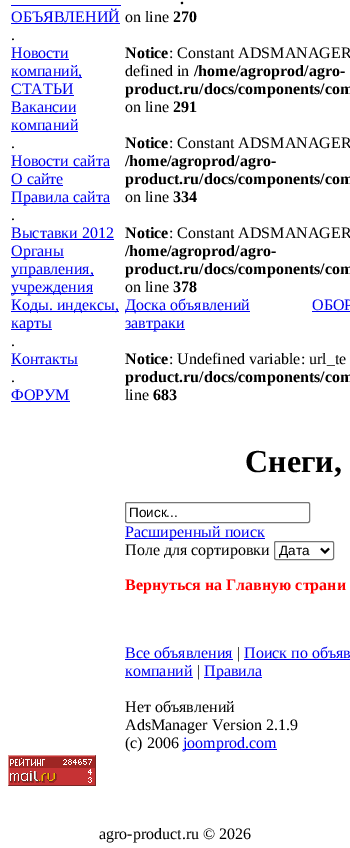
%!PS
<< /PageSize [350 848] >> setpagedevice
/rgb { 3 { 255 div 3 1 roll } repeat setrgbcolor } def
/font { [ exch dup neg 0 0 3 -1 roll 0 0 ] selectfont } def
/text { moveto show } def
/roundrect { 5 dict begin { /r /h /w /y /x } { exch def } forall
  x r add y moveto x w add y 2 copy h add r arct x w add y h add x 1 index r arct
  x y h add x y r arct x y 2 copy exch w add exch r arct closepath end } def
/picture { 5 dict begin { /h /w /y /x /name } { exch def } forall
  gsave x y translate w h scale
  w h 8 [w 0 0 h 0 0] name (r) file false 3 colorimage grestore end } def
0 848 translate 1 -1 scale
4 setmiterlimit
255 255 255 rgb
0 0 350 848 rectfill
0 0 238 rgb
11 5 110 1 rectfill
11 23 109 1 rectfill
11 59 58 1 rectfill
11 77 71 1 rectfill
11 95 63 1 rectfill
11 113 65 1 rectfill
11 131 67 1 rectfill
11 167 99 1 rectfill
11 185 52 1 rectfill
11 203 99 1 rectfill
11 239 103 1 rectfill
11 257 53 1 rectfill
11 275 83 1 rectfill
11 293 82 1 rectfill
11 311 108 1 rectfill
11 329 41 1 rectfill
11 365 67 1 rectfill
11 401 59 1 rectfill
125 311 125 1 rectfill
312 311 38 1 rectfill
125 329 60 1 rectfill
118 118 118 rgb
125.5 502.5 184 20 1.5 roundrect stroke
0 0 238 rgb
125 538 140 1 rectfill
118 118 118 rgb
274.5 541.5 59 18 1.5 roundrect stroke
0 0 0 rgb
2 setlinewidth
321 548.5 moveto 4 4 rlineto 4 -4 rlineto stroke
0 0 238 rgb
125 659 108 1 rectfill
244 659 106 1 rectfill
125 677 68 1 rectfill
204 677 58 1 rectfill
183 749 94 1 rectfill
(img_01.rgb) 8 755 88 31 picture
/LiberationSerif-Regular 16 font
(ОБЪЯВЛЕНИЙ) 11 22 text
0 0 0 rgb
(.) 11 40 text
0 0 238 rgb
(Новости) 11 58 text
(компаний,) 11 76 text
(СТАТЬИ) 11 94 text
(Вакансии) 11 112 text
(компаний) 11 130 text
0 0 0 rgb
(.) 11 148 text
0 0 238 rgb
(Новости сайта) 11 166 text
(О сайте) 11 184 text
(Правила сайта) 11 202 text
0 0 0 rgb
(.) 11 220 text
0 0 238 rgb
(Выставки 2012) 11 238 text
(Органы) 11 256 text
(управления,) 11 274 text
(учреждения) 11 292 text
(Коды. индексы,) 11 310 text
(карты) 11 328 text
0 0 0 rgb
(.) 11 346 text
0 0 238 rgb
(Контакты) 11 364 text
0 0 0 rgb
(.) 11 382 text
0 0 238 rgb
(ФОРУМ) 11 400 text
/LiberationSerif-Bold 16 font
0 0 0 rgb
(.) 180 4 text
/LiberationSerif-Regular 16 font
(on line) 125 22 text
/LiberationSerif-Bold 16 font
(270) 173 22 text
(Notice) 125 58 text
/LiberationSerif-Regular 16 font
(: Constant ADSMANAGER) 169 58 text
(defined in) 125 76 text
/LiberationSerif-Bold 16 font
(/home/agroprod/agro-) 194 76 text
(product.ru/docs/components/com) 125 94 text
/LiberationSerif-Regular 16 font
(on line) 125 112 text
/LiberationSerif-Bold 16 font
(291) 173 112 text
(Notice) 125 148 text
/LiberationSerif-Regular 16 font
(: Constant ADSMANAGER) 169 148 text
/LiberationSerif-Bold 16 font
(/home/agroprod/agro-) 125 166 text
(product.ru/docs/components/com) 125 184 text
/LiberationSerif-Regular 16 font
(on line) 125 202 text
/LiberationSerif-Bold 16 font
(334) 173 202 text
(Notice) 125 238 text
/LiberationSerif-Regular 16 font
(: Constant ADSMANAGER) 169 238 text
/LiberationSerif-Bold 16 font
(/home/agroprod/agro-) 125 256 text
(product.ru/docs/components/com) 125 274 text
/LiberationSerif-Regular 16 font
(on line) 125 292 text
/LiberationSerif-Bold 16 font
(378) 173 292 text
/LiberationSerif-Regular 16 font
0 0 238 rgb
(Доска объявлений) 125 310 text
(ОБОР) 312 310 text
(завтраки) 125 328 text
/LiberationSerif-Bold 16 font
0 0 0 rgb
(Notice) 125 364 text
/LiberationSerif-Regular 16 font
(: Undefined variable: url_te) 169 364 text
/LiberationSerif-Bold 16 font
(product.ru/docs/components/com) 125 382 text
/LiberationSerif-Regular 16 font
(line) 125 400 text
/LiberationSerif-Bold 16 font
(683) 153 400 text
/LiberationSerif-Bold 32 font
(Снеги,) 245 472 text
/LiberationSans-Regular 13.5 font
(Поиск...) 129 517 text
/LiberationSerif-Regular 16 font
0 0 238 rgb
(Расширенный поиск) 125 537 text
0 0 0 rgb
(Поле для сортировки) 125 555 text
/LiberationSans-Regular 13.5 font
(Дата) 279 555 text
/LiberationSerif-Bold 16 font
255 0 0 rgb
(Вернуться на Главную страни) 125 590 text
/LiberationSerif-Regular 16 font
0 0 238 rgb
(Все объявления) 125 658 text
0 0 0 rgb
(|) 237 658 text
0 0 238 rgb
(Поиск по объяв) 244 658 text
(компаний) 125 676 text
0 0 0 rgb
(|) 197 676 text
0 0 238 rgb
(Правила) 204 676 text
0 0 0 rgb
(Нет объявлений) 125 712 text
(AdsManager Version 2.1.9) 125 730 text
(\(c\) 2006) 125 748 text
0 0 238 rgb
(joomprod.com) 183 748 text
0 0 0 rgb
(agro-product.ru © 2026) 99 839 text
showpage
